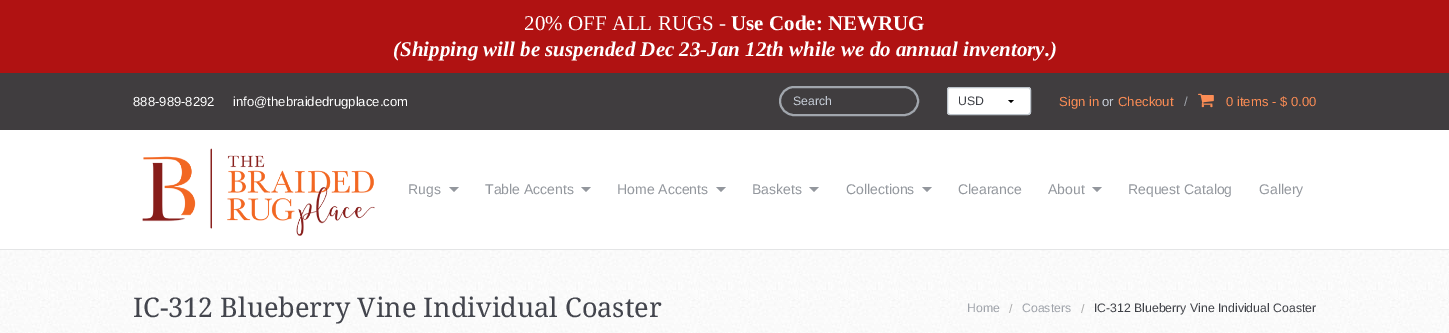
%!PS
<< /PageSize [1449 333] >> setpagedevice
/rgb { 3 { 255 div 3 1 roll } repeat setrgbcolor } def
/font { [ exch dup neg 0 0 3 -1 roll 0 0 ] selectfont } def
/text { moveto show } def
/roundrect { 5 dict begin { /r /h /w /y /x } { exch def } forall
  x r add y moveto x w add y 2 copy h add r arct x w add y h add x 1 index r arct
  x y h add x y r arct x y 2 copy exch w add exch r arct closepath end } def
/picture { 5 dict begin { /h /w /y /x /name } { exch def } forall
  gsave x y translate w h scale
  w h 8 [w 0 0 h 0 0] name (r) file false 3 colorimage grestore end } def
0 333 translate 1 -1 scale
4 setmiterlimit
64 61 63 rgb
0 0 1449 333 rectfill
176 18 18 rgb
0 0 1449 73 rectfill
161 166 173 rgb
2 setlinewidth
780 87 138 28 14 roundrect stroke
255 255 255 rgb
947 87 84 28 3 roundrect fill
0 0 0 rgb
1014 100 moveto -3 3 rlineto -3 -3 rlineto closepath fill
188 195 202 rgb
1 setlinewidth
947.5 87.5 83 27 2.5 roundrect stroke
(img_01.rgb) 1198 93 16 15 picture
255 255 255 rgb
0 130 1449 119 rectfill
228 229 230 rgb
0 249 1449 1 rectfill
(img_02.rgb) 142 148 233 88 picture
147 151 157 rgb
449 187 moveto 10 0 rlineto -5 5 rlineto closepath fill
581 187 moveto 10 0 rlineto -5 5 rlineto closepath fill
716 187 moveto 10 0 rlineto -5 5 rlineto closepath fill
809 187 moveto 10 0 rlineto -5 5 rlineto closepath fill
922 187 moveto 10 0 rlineto -5 5 rlineto closepath fill
1092 187 moveto 10 0 rlineto -5 5 rlineto closepath fill
(img_03.rgb) 0 250 1449 83 picture
/LiberationSerif-Regular 21 font
255 255 255 rgb
(20% OFF ALL RUGS -) 524 30 text
/LiberationSerif-Bold 21 font
(Use Code: NEWRUG) 731 30 text
/LiberationSerif-BoldItalic 21 font
(\(Shipping will be suspended Dec 23-Jan 12th while we do annual inventory.\)) 393 56 text
/LiberationSans-Regular 13.1 font
(888-989-8292) 133 106 text
(info@thebraidedrugplace.com) 233 106 text
/LiberationSans-Regular 12.25 font
199 206 216 rgb
(Search) 793 105 text
62 64 70 rgb
(USD) 958 105 text
/LiberationSans-Regular 13.1 font
252 141 85 rgb
(Sign in) 1059 106 text
199 206 216 rgb
(or) 1102 106 text
252 141 85 rgb
(Checkout) 1118 106 text
159 163 170 rgb
(/) 1184 106 text
252 141 85 rgb
(0 items - $ 0.00) 1226 106 text
/LiberationSans-Regular 14 font
147 151 157 rgb
(Rugs) 408 194 text
(Table Accents) 485 194 text
(Home Accents) 617 194 text
(Baskets) 752 194 text
(Collections) 846 194 text
(Clearance) 958 194 text
(About) 1048 194 text
(Request Catalog) 1128 194 text
(Gallery) 1259 194 text
/DroidSerif-Regular 27.1 font
67 69 77 rgb
(IC-312 Blueberry Vine Individual Coaster) 133 317 text
/LiberationSans-Regular 12.25 font
159 163 170 rgb
(Home) 967 312 text
170 170 170 rgb
(/) 1009 313 text
159 163 170 rgb
(Coasters) 1022 312 text
170 170 170 rgb
(/) 1081 313 text
62 64 70 rgb
(IC-312 Blueberry Vine Individual Coaster) 1094 312 text
showpage
